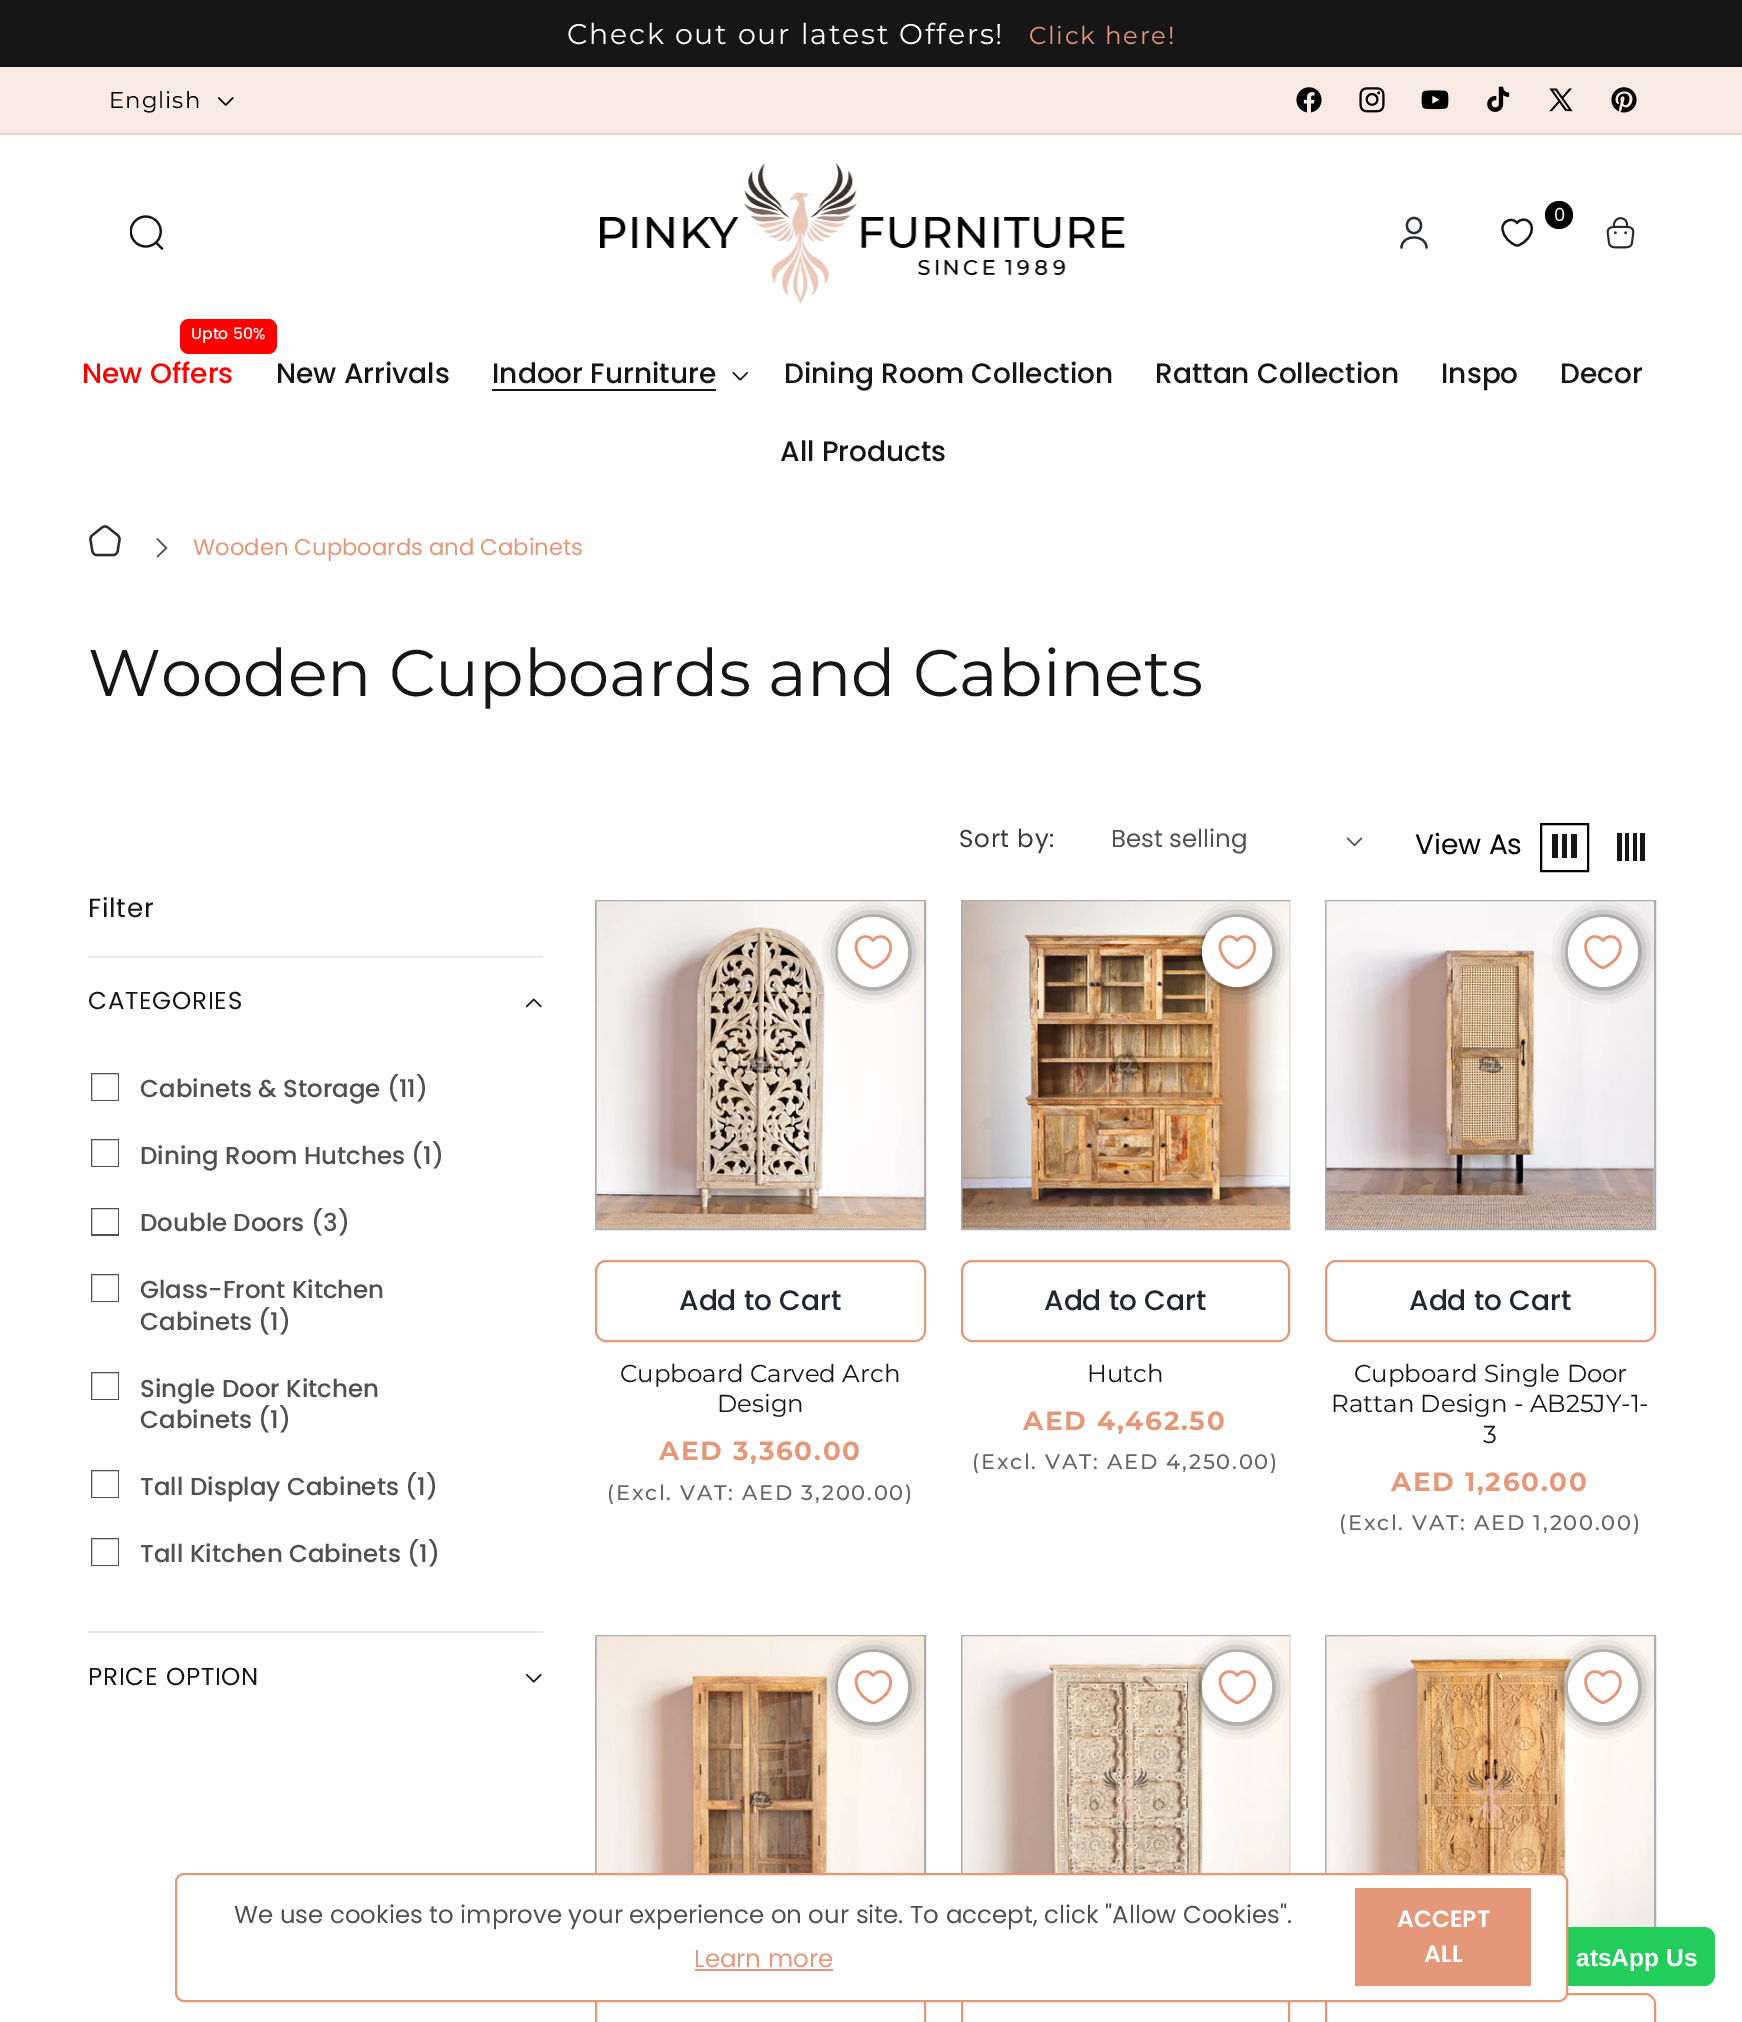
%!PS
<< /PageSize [1742 2022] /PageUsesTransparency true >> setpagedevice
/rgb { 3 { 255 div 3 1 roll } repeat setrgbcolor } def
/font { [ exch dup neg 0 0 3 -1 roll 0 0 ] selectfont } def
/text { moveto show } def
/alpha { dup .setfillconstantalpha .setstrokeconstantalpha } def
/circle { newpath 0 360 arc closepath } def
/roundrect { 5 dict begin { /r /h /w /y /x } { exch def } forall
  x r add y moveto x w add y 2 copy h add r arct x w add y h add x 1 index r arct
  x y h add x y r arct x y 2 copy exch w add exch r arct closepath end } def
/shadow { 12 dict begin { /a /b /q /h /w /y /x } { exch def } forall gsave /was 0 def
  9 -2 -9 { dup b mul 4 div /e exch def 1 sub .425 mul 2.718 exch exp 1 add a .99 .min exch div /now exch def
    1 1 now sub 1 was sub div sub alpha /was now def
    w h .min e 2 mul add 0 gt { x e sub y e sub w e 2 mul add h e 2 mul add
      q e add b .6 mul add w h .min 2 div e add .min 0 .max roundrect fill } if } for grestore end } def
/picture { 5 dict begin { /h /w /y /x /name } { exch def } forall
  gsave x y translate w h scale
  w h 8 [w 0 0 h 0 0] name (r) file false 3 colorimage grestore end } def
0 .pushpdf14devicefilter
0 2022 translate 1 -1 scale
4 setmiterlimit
255 255 255 rgb
0 0 1742 2022 rectfill
22 22 22 rgb
0 0 1742 67 rectfill
250 234 228 rgb
0 67 1742 66 rectfill
230 215 210 rgb
0 133 1742 2 rectfill
(img_01.rgb) 218 97 16 9 picture
(img_02.rgb) 1296 87 26 26 picture
(img_03.rgb) 1359 87 26 26 picture
(img_04.rgb) 1421 90 28 20 picture
(img_05.rgb) 1487 86 23 26 picture
(img_06.rgb) 1549 88 24 24 picture
(img_07.rgb) 1611 87 26 26 picture
(img_08.rgb) 130 215 34 35 picture
(img_09.rgb) 600 163 525 141 picture
0 0 0 rgb
1559 215 14 circle fill
22 22 22 rgb
2.2 setlinewidth
1 setlinecap
1 setlinejoin
1518 245.5 moveto -1.5 0 rlineto -4.5 -1.5 -14 -7.5 -14 -17.5 rcurveto 0 -4.5 4 -8 8.5 -8 rcurveto 2.5 0 5 1 6 3 rcurveto 7 -9 21.5 1 11.5 14.5 rcurveto -2.5 3.5 -6 6.5 -10.5 8 rcurveto closepath stroke
41 45 50 rgb
1414 233 moveto 9.5 0 9.5 -15 0 -15 rcurveto -9.5 0 -9.5 15 0 15 rcurveto closepath 1426.5 247.5 moveto 0 -13.5 -25 -13.5 -25 0 rcurveto stroke
(img_10.rgb) 1606 217 29 32 picture
255 0 0 rgb
180 319 97 35 9 roundrect fill
22 22 22 rgb
492 389 224 2 rectfill
(img_11.rgb) 732 371 17 10 picture
(img_12.rgb) 89 525 32 32 picture
80 80 80 rgb
157.5 538 moveto 10 10 rlineto -2.5 0 rlineto -8.5 -9 rlineto closepath 167.5 548 moveto -10 9.5 rlineto -1 -1 rlineto 8.5 -8.5 rlineto closepath fill
(img_13.rgb) 1346 837 17 10 picture
0 0 0 rgb
2 setlinewidth
0 setlinecap
0 setlinejoin
1541 824 47 47 rectstroke
22 22 22 rgb
1552 834 6 24 rectfill
1562 834 5 24 rectfill
1571 834 6 24 rectfill
1617 833 5 28 rectfill
1625 833 4 28 rectfill
1633 833 4 28 rectfill
1640 833 5 28 rectfill
232 232 232 rgb
88 956 455 2 rectfill
(img_14.rgb) 525 998 17 10 picture
gsave
91 1073 28 28 rectclip
80 80 80 rgb
91 1073 28 28 rectstroke
grestore
gsave
91 1139 28 28 rectclip
80 80 80 rgb
91 1139 28 28 rectstroke
grestore
gsave
91 1208 28 28 rectclip
80 80 80 rgb
91 1208 28 27 rectstroke
grestore
gsave
91 1274 28 28 rectclip
80 80 80 rgb
91 1274 28 28 rectstroke
grestore
gsave
91 1372 28 28 rectclip
80 80 80 rgb
91 1372 28 28 rectstroke
grestore
gsave
91 1470 28 28 rectclip
80 80 80 rgb
91 1470 28 28 rectstroke
grestore
gsave
91 1538 28 28 rectclip
80 80 80 rgb
91 1538 28 28 rectstroke
grestore
88 1631 455 2 rectfill
(img_15.rgb) 525 1673 17 10 picture
173 173 173 rgb
596 901 329 328 rectstroke
(img_16.rgb) 596 901 328 328 picture
0 0 0 rgb
842 921 63 63 31.5 9 1 shadow
255 255 255 rgb
873 952 35 circle fill
228 151 121 rgb
2.6 setlinewidth
1 setlinecap
1 setlinejoin
874.5 967.5 moveto -1 0 -1.5 0 -2.5 0 rcurveto -5 -2 -16 -9 -16 -21.5 rcurveto 0 -5 4 -9.5 9.5 -9.5 rcurveto 3 0 6 1.5 7.5 4 rcurveto 8 -10.5 25.5 1 14 17.5 rcurveto -3 4 -7.5 7.5 -12.5 9.5 rcurveto closepath stroke
2 setlinewidth
0 setlinecap
0 setlinejoin
596 1261 329 80 10 roundrect stroke
173 173 173 rgb
962 901 327 328 rectstroke
(img_17.rgb) 962 901 328 328 picture
0 0 0 rgb
1206 921 63 63 31.5 9 1 shadow
255 255 255 rgb
1237 952 35 circle fill
228 151 121 rgb
2.6 setlinewidth
1 setlinecap
1 setlinejoin
1238.5 967.5 moveto -1 0 -1.5 0 -2.5 0 rcurveto -5 -2 -16 -9 -16 -21.5 rcurveto 0 -5 4 -9.5 9.5 -9.5 rcurveto 3 0 6 1.5 7.5 4 rcurveto 8 -10.5 25.5 1 14 17.5 rcurveto -3 4 -7.5 7.5 -12.5 9.5 rcurveto closepath stroke
2 setlinewidth
0 setlinecap
0 setlinejoin
962 1261 327 80 10 roundrect stroke
173 173 173 rgb
1326 901 329 328 rectstroke
(img_18.rgb) 1326 901 328 328 picture
0 0 0 rgb
1572 921 63 63 31.5 9 1 shadow
255 255 255 rgb
1603 952 35 circle fill
228 151 121 rgb
2.6 setlinewidth
1 setlinecap
1 setlinejoin
1604 967.5 moveto -0.5 0 -1.5 0 -2 0 rcurveto -5 -2 -16.5 -9 -16.5 -21.5 rcurveto 0 -5 4.5 -9.5 9.5 -9.5 rcurveto 3.5 0 6 1.5 8 4 rcurveto 8 -10.5 25.5 1 13.5 17.5 rcurveto -3 4 -7.5 7.5 -12.5 9.5 rcurveto closepath stroke
2 setlinewidth
0 setlinecap
0 setlinejoin
1326 1261 329 80 10 roundrect stroke
173 173 173 rgb
596 1636 329 327 rectstroke
(img_19.rgb) 596 1636 328 237 picture
0 0 0 rgb
842 1656 63 63 31.5 9 1 shadow
255 255 255 rgb
873 1687 35 circle fill
228 151 121 rgb
2.6 setlinewidth
1 setlinecap
1 setlinejoin
874.5 1702.5 moveto -1 0 -1.5 0 -2.5 0 rcurveto -5 -2 -16 -9 -16 -21.5 rcurveto 0 -5 4 -9.5 9.5 -9.5 rcurveto 3 0 6 1.5 7.5 4 rcurveto 8 -10.5 25.5 1 14 17.5 rcurveto -3 4 -7.5 7.5 -12.5 9.5 rcurveto closepath stroke
2 setlinewidth
0 setlinecap
0 setlinejoin
596 1994 329 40 10 roundrect stroke
173 173 173 rgb
962 1636 327 327 rectstroke
(img_20.rgb) 962 1636 328 237 picture
0 0 0 rgb
1206 1656 63 63 31.5 9 1 shadow
255 255 255 rgb
1237 1687 35 circle fill
228 151 121 rgb
2.6 setlinewidth
1 setlinecap
1 setlinejoin
1238.5 1702.5 moveto -1 0 -1.5 0 -2.5 0 rcurveto -5 -2 -16 -9 -16 -21.5 rcurveto 0 -5 4 -9.5 9.5 -9.5 rcurveto 3 0 6 1.5 7.5 4 rcurveto 8 -10.5 25.5 1 14 17.5 rcurveto -3 4 -7.5 7.5 -12.5 9.5 rcurveto closepath stroke
2 setlinewidth
0 setlinecap
0 setlinejoin
962 1994 327 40 10 roundrect stroke
173 173 173 rgb
1326 1636 329 327 rectstroke
(img_21.rgb) 1326 1636 328 291 picture
0 0 0 rgb
1572 1656 63 63 31.5 9 1 shadow
255 255 255 rgb
1603 1687 35 circle fill
228 151 121 rgb
2.6 setlinewidth
1 setlinecap
1 setlinejoin
1604 1702.5 moveto -0.5 0 -1.5 0 -2 0 rcurveto -5 -2 -16.5 -9 -16.5 -21.5 rcurveto 0 -5 4.5 -9.5 9.5 -9.5 rcurveto 3.5 0 6 1.5 8 4 rcurveto 8 -10.5 25.5 1 13.5 17.5 rcurveto -3 4 -7.5 7.5 -12.5 9.5 rcurveto closepath stroke
2 setlinewidth
0 setlinecap
0 setlinejoin
1326 1994 329 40 10 roundrect stroke
34 205 91 rgb
1475 1927 240 59 11 roundrect fill
255 255 255 rgb
176 1874 1391 127 8 roundrect gsave fill grestore
228 151 121 rgb
stroke
695 1969 138 2 rectfill
1355 1888 176 98 rectfill
/Montserrat-Regular 28.5 font
255 255 255 rgb
567 44 moveto 1.75 0 (Check out our latest Offers!) ashow
/Montserrat-Regular 24.5 font
228 151 121 rgb
1029 44 moveto 1.75 0 (Click here!) ashow
/Montserrat-Regular 22.75 font
0 0 0 rgb
109 108 moveto 1 0 (English) ashow
/Poppins-Regular 18 font
255 255 255 rgb
(0) 1554 221 text
/Poppins-Medium 15.75 font
(Upto 50%) 191 339 text
/Poppins-Medium 28 font
255 0 0 rgb
(New Offers) 82 383 text
22 22 22 rgb
(New Arrivals) 276 383 text
(Indoor Furniture) 492 383 text
(Dining Room Collection) 784 383 text
(Rattan Collection) 1155 383 text
(Inspo) 1441 383 text
(Decor) 1560 383 text
(All Products) 780 461 text
/Poppins-Regular 22.75 font
228 151 121 rgb
(Wooden Cupboards and Cabinets) 193 555 text
/Montserrat-Regular 65.6 font
22 22 22 rgb
(Wooden Cupboards and Cabinets) 88 696 text
/Poppins-Regular 24.5 font
57 57 57 rgb
959 847 moveto 0.75 0 (Sort by:) ashow
80 80 80 rgb
(Best selling) 1111 847 text
/Poppins-Regular 28 font
0 0 0 rgb
(View As) 1415 854 text
/Poppins-Regular 26.25 font
22 22 22 rgb
88 917 moveto 0.75 0 (Filter) ashow
/Poppins-Regular 24.5 font
88 1009 moveto 0.75 0 (CATEGORIES) ashow
/Poppins-Medium 24.5 font
80 80 80 rgb
(Cabinets & Storage \(11\)) 140 1097 text
(Dining Room Hutches \(1\)) 140 1164 text
(Double Doors \(3\)) 140 1231 text
(Glass-Front Kitchen) 140 1298 text
(Cabinets \(1\)) 140 1330 text
(Single Door Kitchen) 140 1397 text
(Cabinets \(1\)) 140 1428 text
(Tall Display Cabinets \(1\)) 140 1495 text
(Tall Kitchen Cabinets \(1\)) 140 1562 text
/Poppins-Regular 24.5 font
22 22 22 rgb
88 1685 moveto 0.75 0 (PRICE OPTION) ashow
/Poppins-Medium 28 font
33 38 49 rgb
(Add to Cart) 679 1310 text
/Montserrat-Regular 24.5 font
22 22 22 rgb
(Cupboard Carved Arch) 620 1382 text
(Design) 717 1412 text
/Montserrat-Bold 26.25 font
228 151 121 rgb
659 1460 moveto 1.75 0 (AED 3,360.00) ashow
/Montserrat-Medium 21 font
102 102 102 rgb
607 1500 moveto 1.75 0 (\(Excl. VAT: AED 3,200.00\)) ashow
/Poppins-Medium 28 font
33 38 49 rgb
(Add to Cart) 1044 1310 text
/Montserrat-Regular 24.5 font
22 22 22 rgb
(Hutch) 1087 1382 text
/Montserrat-Bold 26.25 font
228 151 121 rgb
1023 1430 moveto 1.75 0 (AED 4,462.50) ashow
/Montserrat-Medium 21 font
102 102 102 rgb
972 1469 moveto 1.75 0 (\(Excl. VAT: AED 4,250.00\)) ashow
/Poppins-Medium 28 font
33 38 49 rgb
(Add to Cart) 1409 1310 text
/Montserrat-Regular 24.5 font
22 22 22 rgb
(Cupboard Single Door) 1354 1382 text
(Rattan Design - AB25JY-1-) 1331 1412 text
(3) 1483 1443 text
/Montserrat-Bold 26.25 font
228 151 121 rgb
1391 1491 moveto 1.75 0 (AED 1,260.00) ashow
/Montserrat-Medium 21 font
102 102 102 rgb
1339 1530 moveto 1.75 0 (\(Excl. VAT: AED 1,200.00\)) ashow
/Poppins-Regular 24.5 font
80 80 80 rgb
(We use cookies to improve your experience on our site. To accept, click "Allow Cookies".) 234 1923 text
228 151 121 rgb
(Learn more) 694 1967 text
/Poppins-SemiBold 23.5 font
255 255 255 rgb
(ACCEPT) 1397 1927 text
(ALL) 1424 1962 text
/LiberationSans-Bold 24.5 font
(atsApp Us) 1576 1966 text
.poppdf14devicefilter showpage
